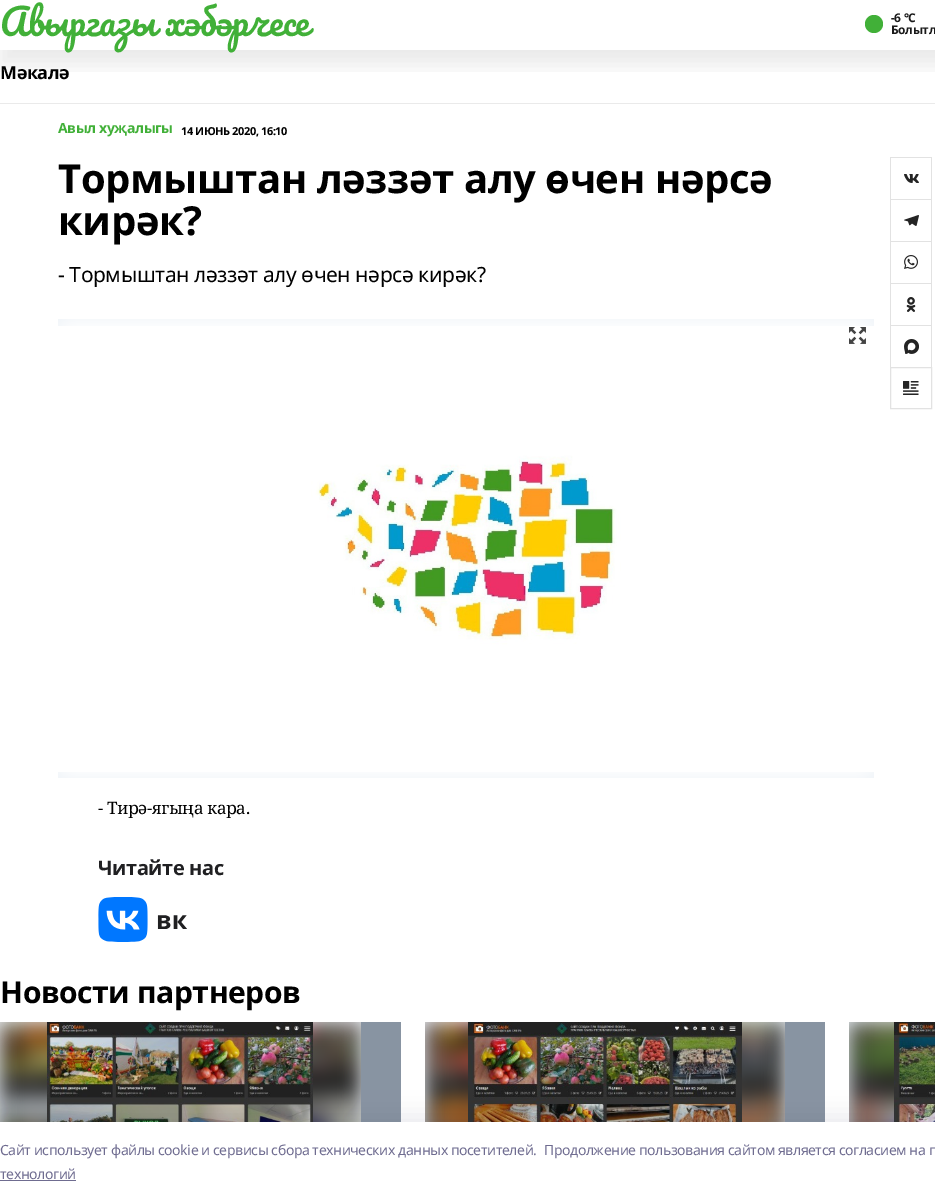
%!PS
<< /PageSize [935 1202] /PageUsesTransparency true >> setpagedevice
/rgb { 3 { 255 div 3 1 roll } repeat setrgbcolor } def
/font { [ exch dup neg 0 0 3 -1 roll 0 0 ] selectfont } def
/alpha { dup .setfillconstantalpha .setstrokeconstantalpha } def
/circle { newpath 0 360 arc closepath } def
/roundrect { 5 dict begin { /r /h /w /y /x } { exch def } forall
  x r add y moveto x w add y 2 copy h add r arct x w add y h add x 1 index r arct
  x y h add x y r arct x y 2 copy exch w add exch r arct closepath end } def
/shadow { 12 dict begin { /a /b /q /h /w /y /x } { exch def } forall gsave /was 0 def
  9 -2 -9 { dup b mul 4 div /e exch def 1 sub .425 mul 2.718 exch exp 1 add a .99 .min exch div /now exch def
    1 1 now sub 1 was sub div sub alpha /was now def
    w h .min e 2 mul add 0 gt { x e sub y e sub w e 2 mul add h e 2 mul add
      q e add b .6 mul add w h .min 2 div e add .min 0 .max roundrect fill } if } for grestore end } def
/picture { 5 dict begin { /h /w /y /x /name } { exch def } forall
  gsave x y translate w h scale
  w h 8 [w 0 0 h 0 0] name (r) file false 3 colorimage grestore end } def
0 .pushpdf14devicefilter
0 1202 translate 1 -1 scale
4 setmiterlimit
255 255 255 rgb
0 0 935 1202 rectfill
gsave
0 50 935 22 rectclip
0 0 0 rgb
0 15 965 50 0 10 0.08 shadow
grestore
65 176 56 rgb
874 24 9 circle fill
234 234 234 rgb
0 103 935 1 rectfill
237 242 247 rgb
58 319 816 459 rectfill
(img_01.rgb) 58 319 816 459 picture
(img_02.rgb) 58 326 816 446 picture
(img_03.rgb) 849 327 17 17 picture
(img_04.rgb) 98 897 89 45 picture
(img_05.rgb) 904 174 15 9 picture
226 226 226 rgb
890 157 42 1 rectfill
931 157 1 42 rectfill
890 157 1 42 rectfill
(img_06.rgb) 904 215 15 11 picture
890 199 42 1 rectfill
931 199 1 42 rectfill
890 199 1 42 rectfill
(img_07.rgb) 904 255 14 14 picture
890 241 42 1 rectfill
931 241 1 42 rectfill
890 241 1 42 rectfill
(img_08.rgb) 906 297 10 15 picture
890 283 42 1 rectfill
931 283 1 42 rectfill
890 283 1 42 rectfill
(img_09.rgb) 904 339 15 15 picture
890 325 42 1 rectfill
931 325 1 42 rectfill
890 325 1 42 rectfill
(img_10.rgb) 903 381 16 14 picture
890.5 367.5 41 41 rectstroke
136 148 162 rgb
361 1022 40 100 rectfill
237 242 247 rgb
0 1022 361 100 rectfill
(img_11.rgb) 0 1022 361 100 picture
(img_12.rgb) 47 1022 266 100 picture
136 148 162 rgb
785 1022 40 100 rectfill
237 242 247 rgb
425 1022 360 100 rectfill
(img_13.rgb) 425 1022 360 100 picture
(img_14.rgb) 468 1022 274 100 picture
849 1022 45 100 rectfill
(img_15.rgb) 849 1022 45 100 picture
(img_16.rgb) 894 1022 41 100 picture
20 20 43 rgb
0 1116 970 80 0 11.5 0.08 shadow
255 255 255 rgb
0 1122 935 80 rectfill
111 108 144 rgb
0 1180 76 1 rectfill
/Pacifico-Regular 36 font
65 176 56 rgb
0 36 moveto -0.42 0 (Авыргазы хәбәрчесе) ashow
/NotoSans-Bold 12 font
26 26 26 rgb
891 22 moveto -0.42 0 (-6 °С) ashow
891 34 moveto -0.42 0 (Болытл) ashow
/NotoSans-Bold 18 font
0 0 0 rgb
0 79 moveto -0.42 0 (Мәкалә) ashow
/NotoSans-Bold 14 font
65 176 56 rgb
58 133 moveto -0.42 0 (Авыл хуҗалыгы) ashow
/NotoSans-Bold 11 font
0 0 0 rgb
181 135 moveto -0.42 0 (14 ИЮНЬ 2020, 16:10) ashow
/NotoSans-Bold 40 font
58 193 moveto -0.42 0 (Тормыштан ләззәт алу өчен нәрсә) ashow
58 235 moveto -0.42 0 (кирәк?) ashow
/NotoSans-Regular 21 font
58 282 moveto -0.42 0 (- Тормыштан ләззәт алу өчен нәрсә кирәк?) ashow
/NotoSerif-Regular 17 font
98 814 moveto -0.42 0 (- Тирә-ягыңа кара.) ashow
/NotoSans-Bold 20 font
32 32 34 rgb
98 875 moveto -0.42 0 (Читайте нас) ashow
/NotoSans-Bold 30 font
0 0 0 rgb
0 1003 moveto -0.42 0 (Новости партнеров) ashow
/NotoSans-Regular 14 font
111 108 144 rgb
0 1155 moveto -0.42 0 (Cайт использует файлы cookie и сервисы сбора технических данных посетителей.) ashow
544 1155 moveto -0.42 0 (Продолжение пользования сайтом является согласием на п) ashow
0 1179 moveto -0.42 0 (технологий) ashow
.poppdf14devicefilter showpage
